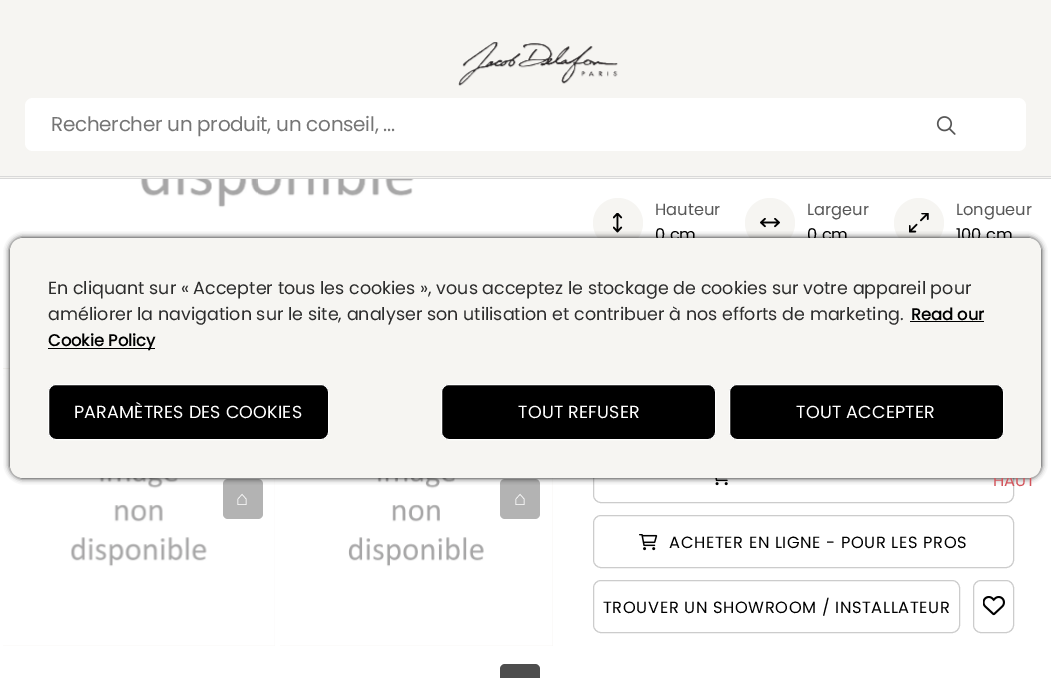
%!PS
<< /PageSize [1051 678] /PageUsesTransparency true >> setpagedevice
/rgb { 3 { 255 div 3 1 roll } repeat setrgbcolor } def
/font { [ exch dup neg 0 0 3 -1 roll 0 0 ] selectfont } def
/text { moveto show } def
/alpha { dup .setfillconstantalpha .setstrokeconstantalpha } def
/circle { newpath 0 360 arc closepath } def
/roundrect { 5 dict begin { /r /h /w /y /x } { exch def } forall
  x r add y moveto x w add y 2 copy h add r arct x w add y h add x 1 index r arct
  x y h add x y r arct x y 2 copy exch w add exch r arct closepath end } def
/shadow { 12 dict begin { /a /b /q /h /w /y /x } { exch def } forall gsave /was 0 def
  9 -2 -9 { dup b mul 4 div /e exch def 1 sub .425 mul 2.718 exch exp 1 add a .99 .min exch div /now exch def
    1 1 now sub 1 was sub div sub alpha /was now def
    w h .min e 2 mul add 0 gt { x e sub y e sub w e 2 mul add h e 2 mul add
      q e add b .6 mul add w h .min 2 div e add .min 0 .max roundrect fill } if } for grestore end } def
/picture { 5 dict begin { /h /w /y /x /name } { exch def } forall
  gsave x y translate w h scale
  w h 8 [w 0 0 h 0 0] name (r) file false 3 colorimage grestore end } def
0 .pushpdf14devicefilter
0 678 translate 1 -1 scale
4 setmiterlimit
255 255 255 rgb
0 0 1051 678 rectfill
246 245 242 rgb
0 0 1051 178 rectfill
217 217 217 rgb
0 178 1051 1 rectfill
(img_01.rgb) 458 42 160 44 picture
255 255 255 rgb
25 98 1001 53 8 roundrect fill
(img_02.rgb) 936 116 20 19 picture
217 217 217 rgb
0 176 1051 1 rectfill
246 245 242 rgb
3 368 7 1 rectfill
(img_03.rgb) 3 179 550 189 picture
3 478 272 168 rectfill
(img_04.rgb) 3 374 272 272 picture
179 179 179 rgb
223 479 40 40 5 roundrect fill
246 245 242 rgb
280 478 273 168 rectfill
(img_05.rgb) 280 478 273 168 picture
179 179 179 rgb
500 479 40 40 5 roundrect fill
77 77 77 rgb
500 664 40 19 5 roundrect fill
246 245 242 rgb
618 223 25 circle fill
(img_06.rgb) 613 213 10 20 picture
770 223 25 circle fill
(img_07.rgb) 760 218 20 10 picture
919 223 25 circle fill
(img_08.rgb) 909 213 20 20 picture
204 204 204 rgb
593.5 450.5 420 52 7.5 roundrect stroke
(img_09.rgb) 715 478 13 8 picture
593.5 515.5 420 52 7.5 roundrect stroke
(img_10.rgb) 639 534 19 17 picture
593.5 580.5 366 52 7.5 roundrect stroke
973.5 580.5 40 52 7.5 roundrect stroke
(img_11.rgb) 983 596 22 20 picture
0 0 0 rgb
10 238 1031 240 13 3 1 shadow
/Poppins-Regular 20 font
117 117 117 rgb
51 131 moveto -0.3 0 (Rechercher un produit, un conseil, ...) ashow
/LiberationSans-Bold 20 font
255 255 255 rgb
(⌂) 236 505 text
(⌂) 514 505 text
/Poppins-Regular 16.25 font
87 87 87 rgb
(Hauteur) 655 215 text
0 0 0 rgb
(0 cm) 655 240 text
87 87 87 rgb
(Largeur) 807 215 text
0 0 0 rgb
(0 cm) 807 240 text
87 87 87 rgb
(Longueur) 956 215 text
0 0 0 rgb
(100 cm) 956 240 text
669 548 moveto 0.65 0 (ACHETER EN LIGNE - POUR LES PROS) ashow
603 613 moveto 0.65 0 (TROUVER UN SHOWROOM / INSTALLATEUR) ashow
210 85 92 rgb
(HAUT) 993 486 text
246 245 242 rgb
10 238 1031 240 13 roundrect fill
/Poppins-Regular 17.5 font
44 44 44 rgb
(En cliquant sur « Accepter tous les cookies », vous acceptez le stockage de cookies sur votre appareil pour) 48 294 text
(améliorer la navigation sur le site, analyser son utilisation et contribuer à nos efforts de marketing.) 48 320 text
/Poppins-Bold 16.25 font
0 0 0 rgb
(Read our) 911 320 text
910 321 74 1 rectfill
48 348 107 1 rectfill
(Cookie Policy) 48 346 text
48.5 384.5 280 55 7.5 roundrect gsave fill grestore
255 255 255 rgb
stroke
/Poppins-Regular 17.5 font
74 418 moveto 0.2 0 (PARAMÈTRES DES COOKIES) ashow
0 0 0 rgb
441.5 384.5 274 55 7.5 roundrect gsave fill grestore
255 255 255 rgb
stroke
518 418 moveto 0.2 0 (TOUT REFUSER) ashow
0 0 0 rgb
729.5 384.5 274 55 7.5 roundrect gsave fill grestore
255 255 255 rgb
stroke
796 418 moveto 0.2 0 (TOUT ACCEPTER) ashow
.poppdf14devicefilter showpage
